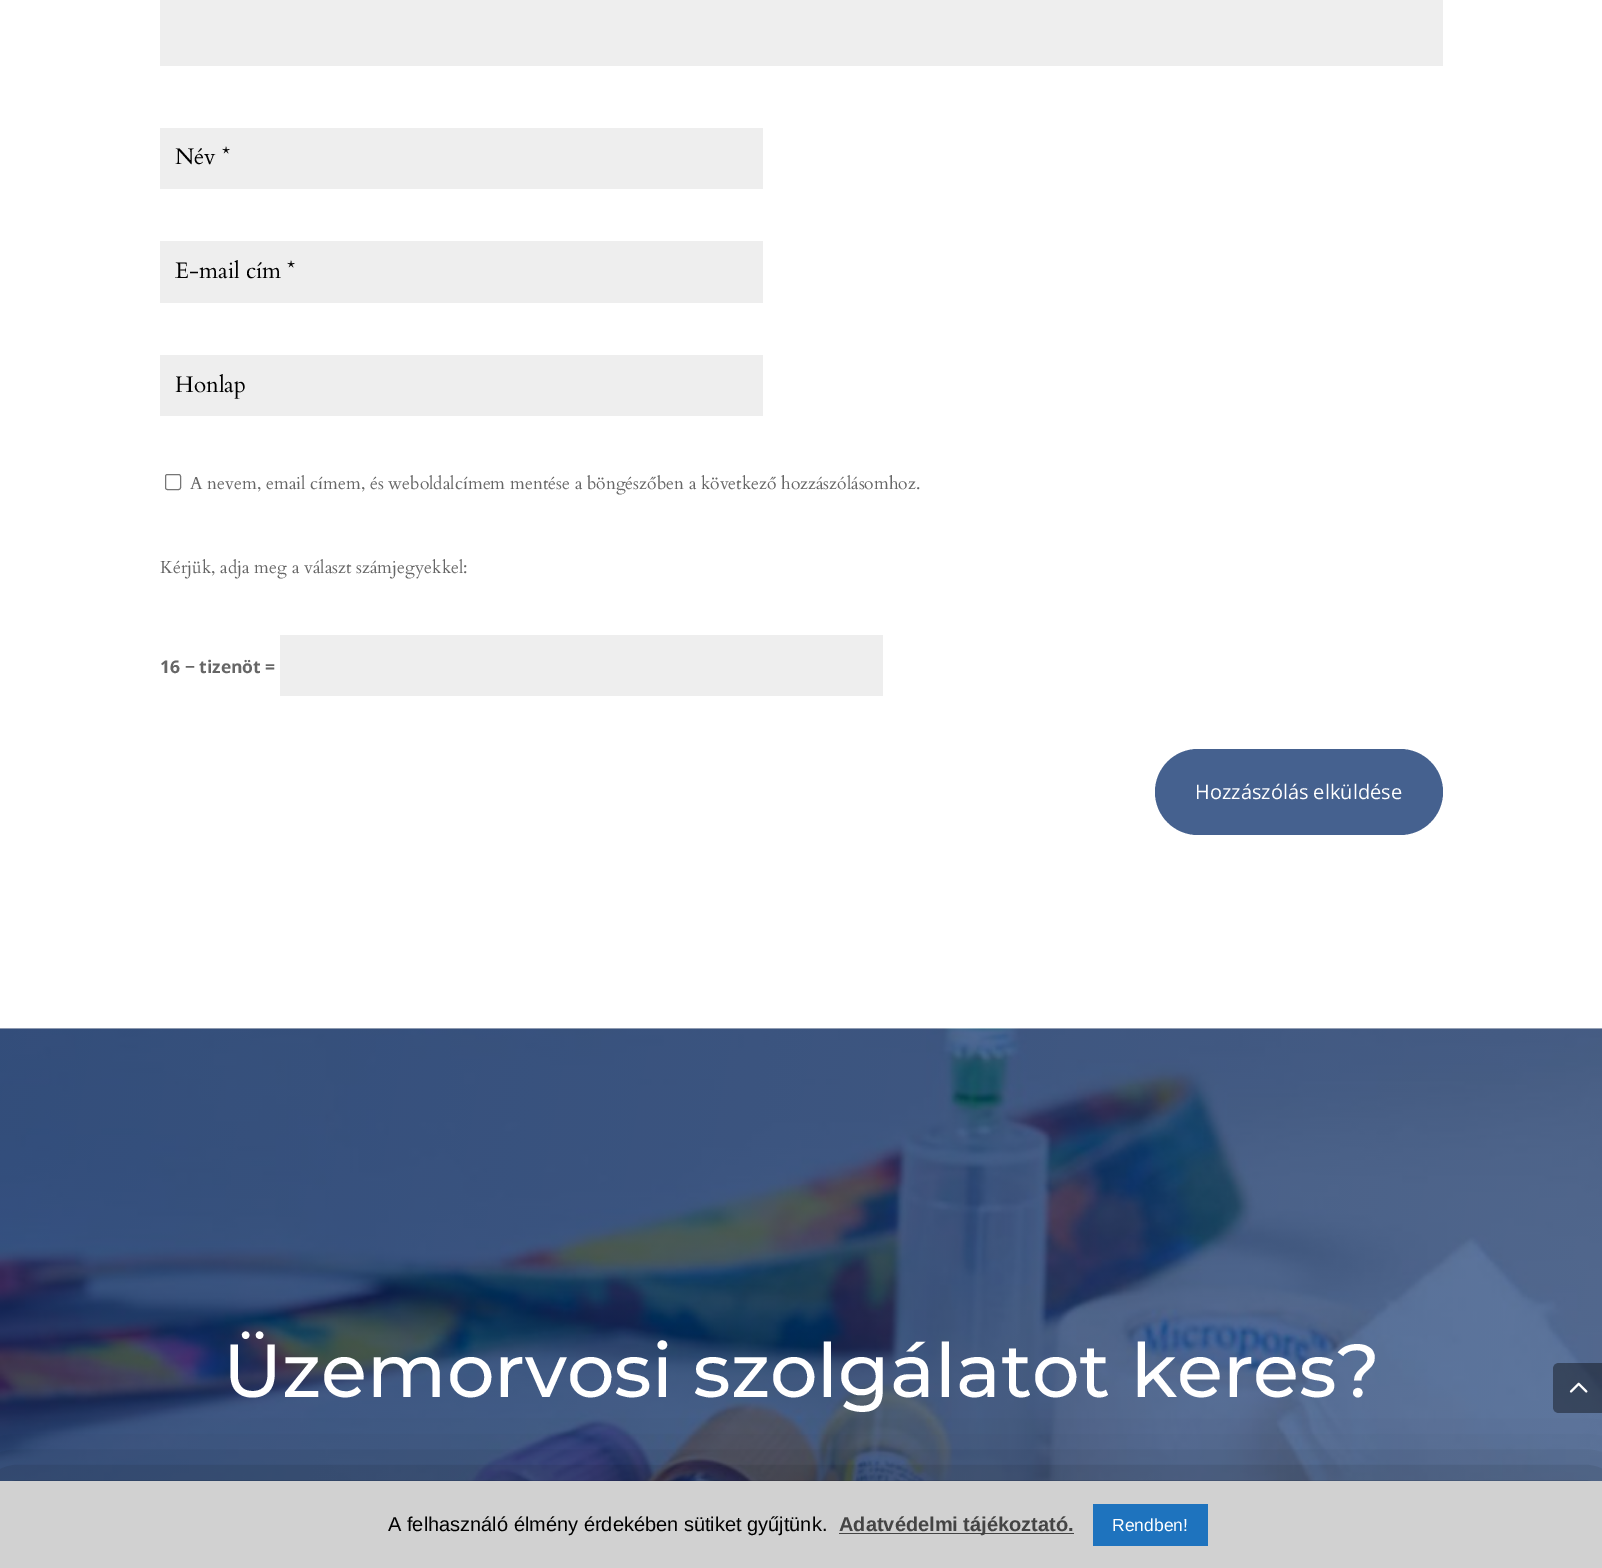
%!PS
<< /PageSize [1602 1568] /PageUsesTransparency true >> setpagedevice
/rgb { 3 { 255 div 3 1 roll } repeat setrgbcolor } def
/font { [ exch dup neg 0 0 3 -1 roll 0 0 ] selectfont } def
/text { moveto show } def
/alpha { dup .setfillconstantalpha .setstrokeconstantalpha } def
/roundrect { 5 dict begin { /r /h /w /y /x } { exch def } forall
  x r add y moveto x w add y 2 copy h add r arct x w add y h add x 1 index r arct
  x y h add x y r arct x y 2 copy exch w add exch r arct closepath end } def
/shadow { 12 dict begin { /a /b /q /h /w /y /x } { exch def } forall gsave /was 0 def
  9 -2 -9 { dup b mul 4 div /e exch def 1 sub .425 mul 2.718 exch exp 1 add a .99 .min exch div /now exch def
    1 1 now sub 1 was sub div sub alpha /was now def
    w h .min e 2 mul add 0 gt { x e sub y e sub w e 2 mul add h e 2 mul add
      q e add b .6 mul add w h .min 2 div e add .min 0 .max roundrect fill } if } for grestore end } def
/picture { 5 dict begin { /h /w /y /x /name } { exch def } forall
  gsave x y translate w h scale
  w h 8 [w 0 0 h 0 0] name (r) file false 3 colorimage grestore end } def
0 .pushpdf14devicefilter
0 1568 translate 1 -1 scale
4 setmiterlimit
255 255 255 rgb
0 0 1602 1568 rectfill
238 238 238 rgb
160 0 1283 66 rectfill
160 128 603 61 rectfill
160 241 603 62 rectfill
160 355 603 61 rectfill
118 118 118 rgb
165.5 474.5 15 15 2 roundrect stroke
238 238 238 rgb
280 635 603 61 rectfill
69 97 143 rgb
1155 749 288 86 43 roundrect fill
(img_01.rgb) 0 1028 1602 453 picture
0 0 0 rgb
0 1488 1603 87 0 31 0.5 shadow
0.4 alpha
1559 1363 moveto 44 0 rlineto 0 50 rlineto -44 0 rlineto -3.5 0 -6 -2.5 -6 -6 rcurveto 0 -38 rlineto 0 -3.5 2.5 -6 6 -6 rcurveto closepath fill
1 alpha
(img_02.rgb) 1569 1382 19 11 picture
209 209 209 rgb
0 1481 1602 87 rectfill
68 68 68 rgb
839 1533 235 1 rectfill
30 115 190 rgb
1093 1504 115 42 rectfill
/Cardo-Regular 22.5 font
0 0 0 rgb
(Név *) 175 164 text
(E-mail cím *) 175 278 text
(Honlap) 175 392 text
/Cardo-Regular 17.5 font
102 102 102 rgb
(A nevem, email címem, és weboldalcímem mentése a böngészőben a következő hozzászólásomhoz.) 190 489 text
(Kérjük, adja meg a választ számjegyekkel:) 160 573 text
/OpenSans-Bold 17.5 font
(16 − tizenöt =) 160 673 text
/OpenSans-Regular 20 font
255 255 255 rgb
(Hozzászólás elküldése) 1195 799 text
/Montserrat-Medium 75 font
(Üzemorvosi szolgálatot keres?) 223 1397 text
/LiberationSans-Regular 20 font
0 0 0 rgb
(A felhasználó élmény érdekében sütiket gyűjtünk.) 388 1531 text
/LiberationSans-Bold 20 font
68 68 68 rgb
(Adatvédelmi tájékoztató.) 839 1531 text
/LiberationSans-Regular 17.5 font
255 255 255 rgb
(Rendben!) 1112 1531 text
.poppdf14devicefilter showpage
